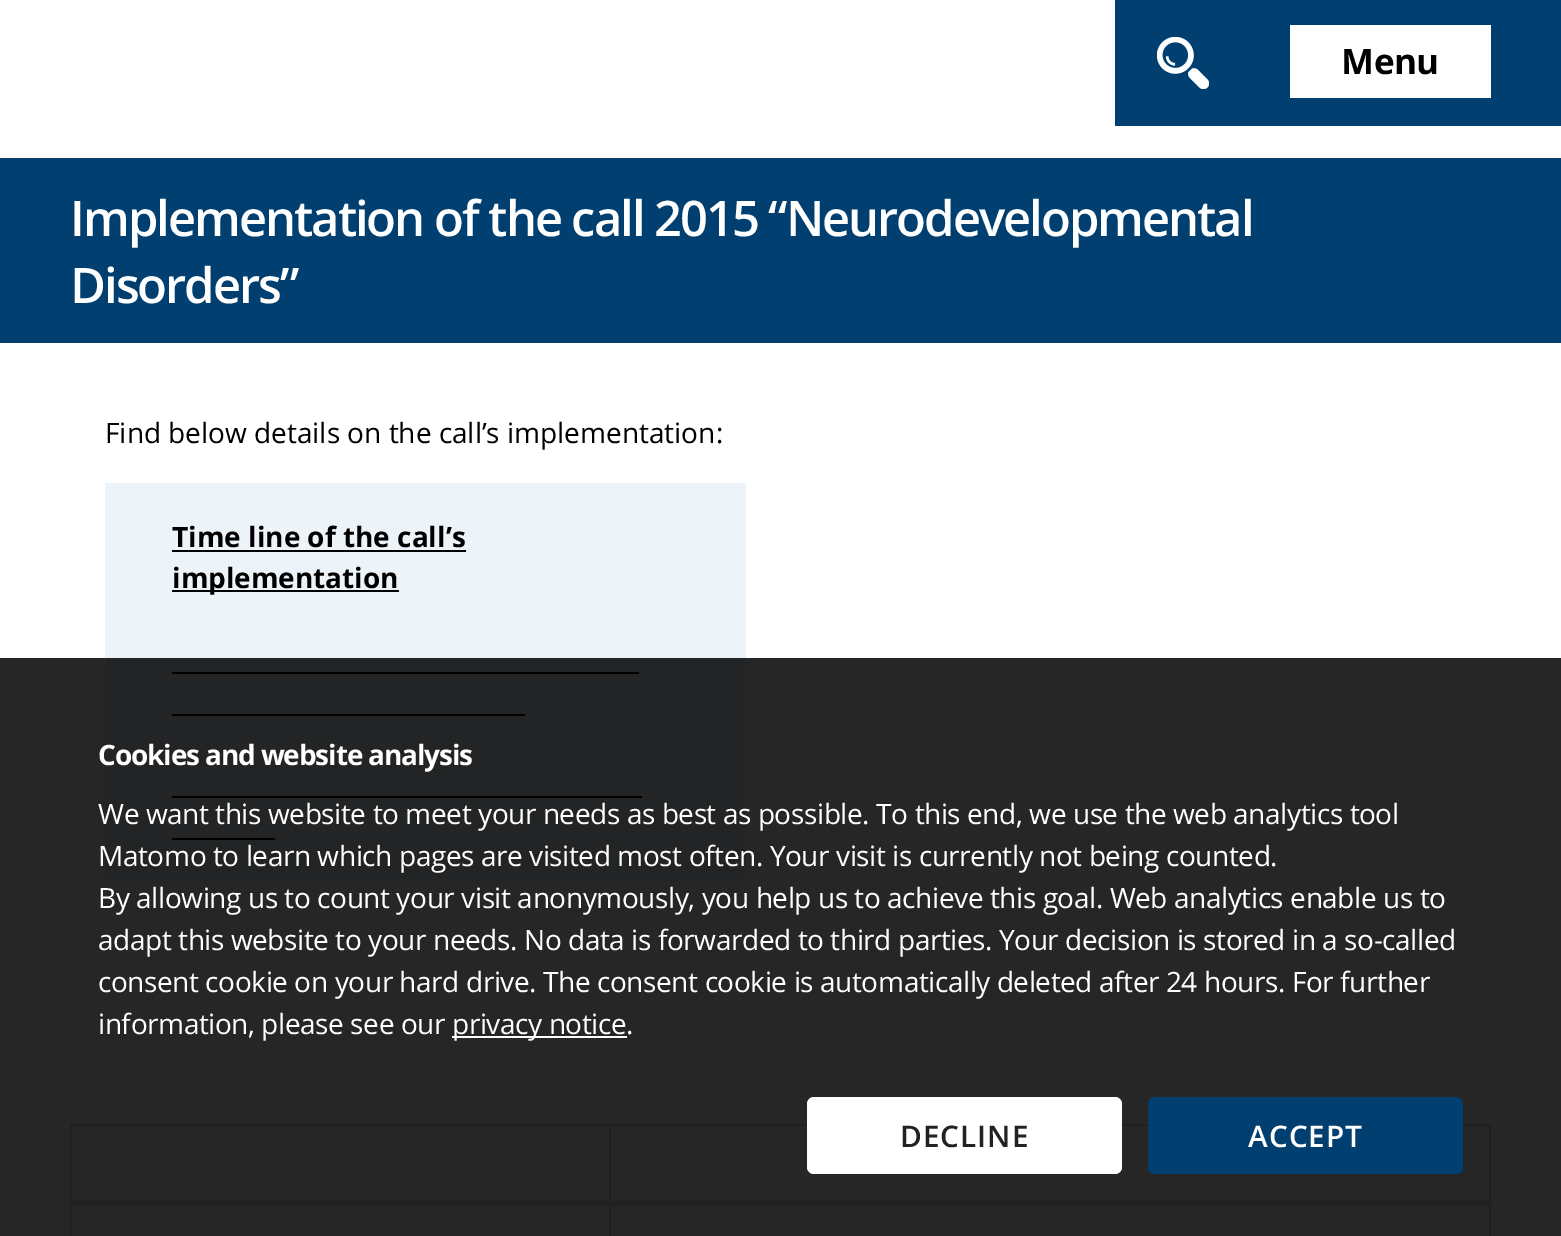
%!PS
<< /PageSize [1561 1236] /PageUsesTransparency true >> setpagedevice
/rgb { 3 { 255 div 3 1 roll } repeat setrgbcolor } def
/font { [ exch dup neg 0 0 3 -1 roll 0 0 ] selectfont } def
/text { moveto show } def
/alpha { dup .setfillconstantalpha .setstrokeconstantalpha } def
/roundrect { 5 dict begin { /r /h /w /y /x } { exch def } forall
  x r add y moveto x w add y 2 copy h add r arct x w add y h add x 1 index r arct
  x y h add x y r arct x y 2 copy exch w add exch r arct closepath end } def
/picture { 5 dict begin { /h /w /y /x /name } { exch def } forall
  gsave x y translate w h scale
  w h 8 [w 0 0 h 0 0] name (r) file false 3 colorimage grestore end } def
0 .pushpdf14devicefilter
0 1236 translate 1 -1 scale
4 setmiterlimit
255 255 255 rgb
0 0 1561 1236 rectfill
0 63 111 rgb
1115 0 446 126 rectfill
(img_01.rgb) 1157 37 52 52 picture
255 255 255 rgb
1290 25 201 73 rectfill
0 63 111 rgb
0 158 1561 185 rectfill
236 244 250 rgb
105 483 641 399 rectfill
0 0 0 rgb
172 550 294 2 rectfill
172 590 227 2 rectfill
172 672 467 2 rectfill
172 714 353 2 rectfill
172 796 470 2 rectfill
172 838 103 2 rectfill
220 215 202 rgb
70 1124 1421 2 rectfill
1489 1124 2 112 rectfill
70 1124 2 112 rectfill
609 1125 2 111 rectfill
72 1201 1417 5 rectfill
0.85 alpha
0 0 0 rgb
0 658 1561 578 rectfill
1 alpha
255 255 255 rgb
452 1036 175 2 rectfill
807 1097 315 77 7 roundrect fill
0 63 111 rgb
1148 1097 315 77 7 roundrect fill
/OpenSans-Bold 35 font
0 0 0 rgb
1341 74 moveto -0.42 0 (Menu) ashow
/OpenSans-SemiBold 49 font
255 255 255 rgb
70 236 moveto -2.05 0 (Implementation of the call 2015 “Neurodevelopmental) ashow
70 303 moveto -2.05 0 (Disorders”) ashow
/OpenSans-Regular 28 font
0 0 0 rgb
(Find below details on the call’s implementation:) 105 443 text
/OpenSans-Bold 28 font
(Time line of the call’s) 172 547 text
(implementation) 172 588 text
255 255 255 rgb
98 765 moveto -1.15 0 (Cookies and website analysis) ashow
/OpenSans-Regular 28 font
98 824 moveto -0.42 0 (We want this website to meet your needs as best as possible. To this end, we use the web analytics tool) ashow
98 866 moveto -0.42 0 (Matomo to learn which pages are visited most often. Your visit is currently not being counted.) ashow
98 908 moveto -0.42 0 (By allowing us to count your visit anonymously, you help us to achieve this goal. Web analytics enable us to) ashow
98 950 moveto -0.42 0 (adapt this website to your needs. No data is forwarded to third parties. Your decision is stored in a so-called) ashow
98 992 moveto -0.42 0 (consent cookie on your hard drive. The consent cookie is automatically deleted after 24 hours. For further) ashow
98 1034 moveto -0.42 0 (information, please see our) ashow
452 1034 moveto -0.42 0 (privacy notice.) ashow
/OpenSans-SemiBold 29.75 font
34 34 34 rgb
900 1147 moveto 1 0 (DECLINE) ashow
255 255 255 rgb
1248 1147 moveto 1 0 (ACCEPT) ashow
.poppdf14devicefilter showpage
